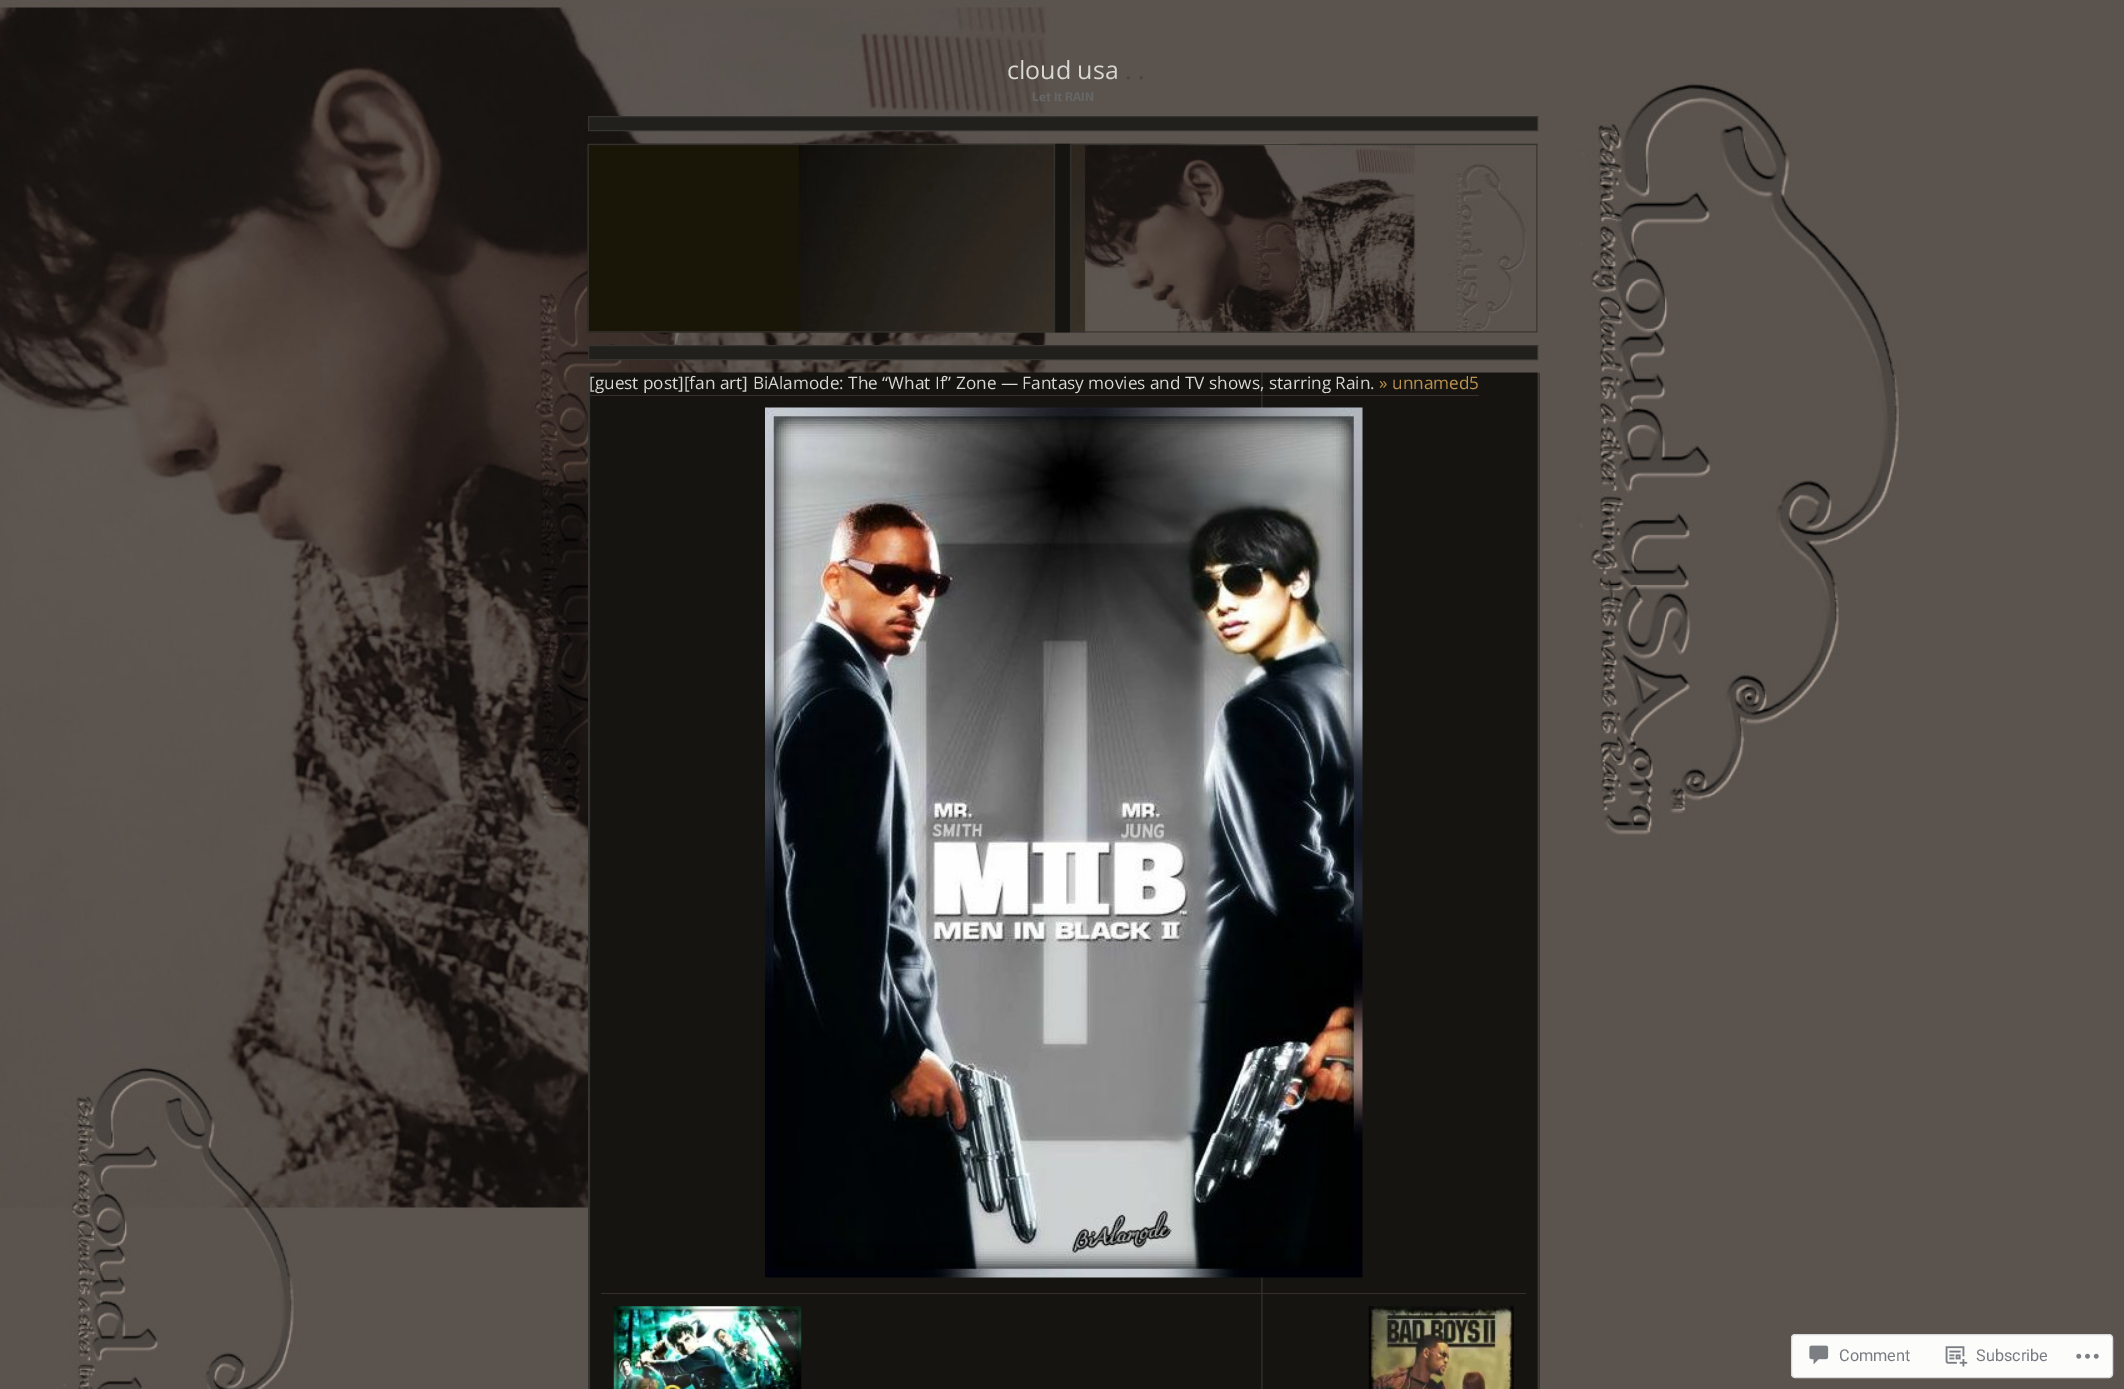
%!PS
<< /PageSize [2124 1389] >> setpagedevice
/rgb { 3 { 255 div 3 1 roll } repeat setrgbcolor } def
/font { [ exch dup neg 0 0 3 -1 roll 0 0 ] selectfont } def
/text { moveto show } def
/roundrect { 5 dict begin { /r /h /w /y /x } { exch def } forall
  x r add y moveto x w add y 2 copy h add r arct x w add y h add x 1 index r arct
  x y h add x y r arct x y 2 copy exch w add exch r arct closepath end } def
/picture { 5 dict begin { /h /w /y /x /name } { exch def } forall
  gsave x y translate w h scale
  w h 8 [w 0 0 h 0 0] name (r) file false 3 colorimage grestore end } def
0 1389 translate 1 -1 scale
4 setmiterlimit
255 255 255 rgb
0 0 2124 1389 rectfill
(img_01.rgb) 0 0 2124 1389 picture
34 32 29 rgb
588.5 116.5 moveto 949 0 rlineto 0 14 rlineto -949 0 rlineto closepath gsave fill grestore
54 52 48 rgb
stroke
(img_02.rgb) 587 143 951 190 picture
(img_03.rgb) 587 143 951 190 picture
34 32 29 rgb
588.5 345.5 moveto 949 0 rlineto 0 14 rlineto -949 0 rlineto closepath gsave fill grestore
54 52 48 rgb
stroke
(img_04.rgb) 588 372 951 1017 picture
1539 373 1 1016 rectfill
588 373 1 1016 rectfill
53 48 42 rgb
589 395 890 1 rectfill
(img_05.rgb) 765 407 598 871 picture
601 1293 925 1 rectfill
(img_06.rgb) 613 1306 189 83 picture
(img_07.rgb) 1368 1306 146 83 picture
252 252 251 rgb
1791.5 1334.5 321 43 3.5 roundrect gsave fill grestore
217 217 219 rgb
stroke
(img_08.rgb) 1809 1345 20 20 picture
(img_09.rgb) 1945 1346 23 21 picture
(img_10.rgb) 2076 1353 23 6 picture
/OpenSans-Regular 25 font
216 215 211 rgb
(cloud usa) 1007 79 text
68 68 68 rgb
(. .) 1125 79 text
/Exo2-Bold 12.5 font
102 102 102 rgb
(Let It RAIN) 1032 101 text
/OpenSans-Regular 17.2 font
216 215 211 rgb
([guest post][fan art] BiAlamode: The “What If” Zone — Fantasy movies and TV shows, starring Rain.) 589 389 text
189 147 79 rgb
(» unnamed5) 1379 389 text
/Roboto-Regular 16.25 font
119 123 129 rgb
(Comment) 1839 1361 text
(Subscribe) 1976 1361 text
showpage
